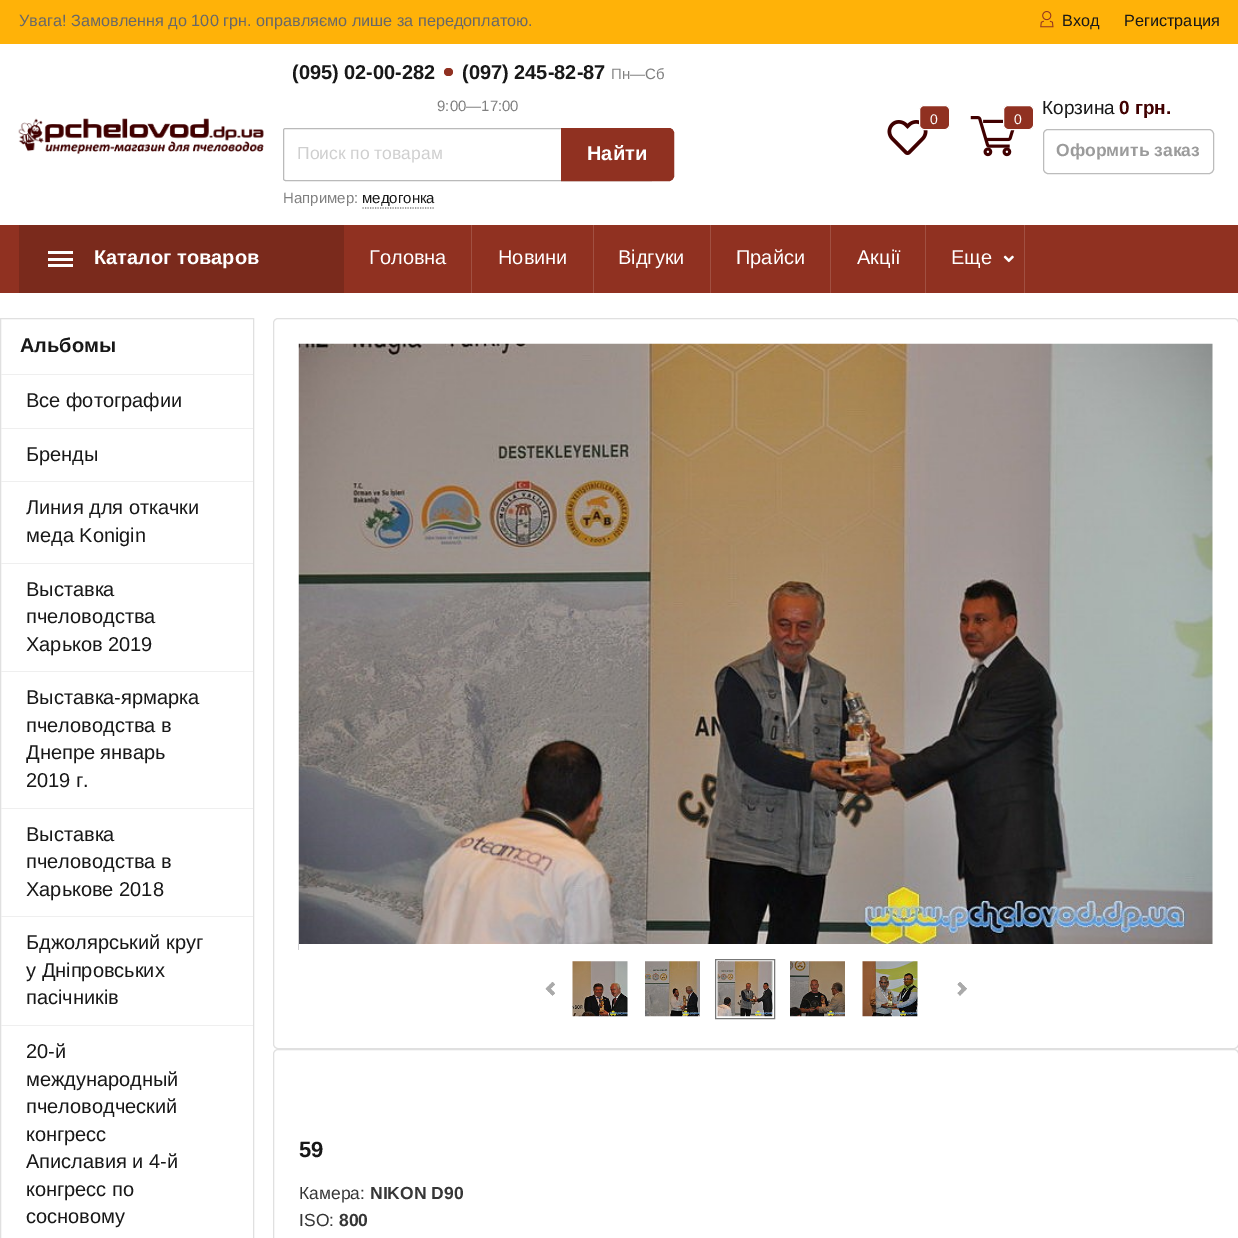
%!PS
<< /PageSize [1238 1238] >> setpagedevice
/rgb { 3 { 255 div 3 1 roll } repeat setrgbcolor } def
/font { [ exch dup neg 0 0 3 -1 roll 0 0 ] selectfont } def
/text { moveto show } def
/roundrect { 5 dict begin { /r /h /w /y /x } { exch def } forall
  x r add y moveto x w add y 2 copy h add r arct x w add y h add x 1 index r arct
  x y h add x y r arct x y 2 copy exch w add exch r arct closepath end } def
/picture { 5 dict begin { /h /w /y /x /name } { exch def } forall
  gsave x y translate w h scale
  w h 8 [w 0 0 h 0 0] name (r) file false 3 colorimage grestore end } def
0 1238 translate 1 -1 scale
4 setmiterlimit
255 255 255 rgb
0 0 1238 1238 rectfill
255 178 8 rgb
0 0 1238 44 rectfill
(img_01.rgb) 1040 11 14 17 picture
(img_02.rgb) 18 118 246 36 picture
144 49 33 rgb
444 68 9 8 4 roundrect fill
186 186 186 rgb
283.5 128.5 370 52 2 roundrect stroke
144 49 33 rgb
561.5 128.5 moveto 107.5 0 rlineto 2.5 0 4.5 2 4.5 4.5 rcurveto 0 43 rlineto 0 2.5 -2 4.5 -4.5 4.5 rcurveto -107.5 0 rlineto closepath gsave fill grestore
stroke
128 128 128 rgb
1.2 setlinewidth
[1.25 1.25] 0 setdash
362.5 208 moveto 72.5 0 rlineto stroke
(img_03.rgb) 887 120 41 35 picture
144 49 33 rgb
919.5 105.5 30 24 4.5 roundrect gsave fill grestore
255 255 255 rgb
1 setlinewidth
[] 0 setdash
stroke
(img_04.rgb) 970 116 45 41 picture
144 49 33 rgb
1003.5 105.5 30 24 4.5 roundrect gsave fill grestore
255 255 255 rgb
stroke
188 188 188 rgb
1043.5 129.5 170 44 4.5 roundrect stroke
144 49 33 rgb
0 225 1238 68 rectfill
122 42 28 rgb
19 225 325 68 rectfill
255 255 255 rgb
48 251 25 3 rectfill
48 258 25 3 rectfill
48 264 25 3 rectfill
161 80 66 rgb
471 225 1 68 rectfill
593 225 1 68 rectfill
710 225 1 68 rectfill
830 225 1 68 rectfill
925 225 1 68 rectfill
1024 225 1 68 rectfill
(img_05.rgb) 1003 255 11 8 picture
224 224 224 rgb
0.5 318.5 253 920 rectstroke
239 239 239 rgb
1 374 252 1 rectfill
1 428 252 1 rectfill
1 481 252 1 rectfill
1 563 252 1 rectfill
1 671 252 1 rectfill
1 808 252 1 rectfill
1 916 252 1 rectfill
1 1025 252 1 rectfill
224 224 224 rgb
273.5 318.5 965 730 4.5 roundrect stroke
(img_06.rgb) 298 343 915 607 picture
255 255 255 rgb
299 944 914 6 rectfill
(img_07.rgb) 545 982 10 14 picture
(img_08.rgb) 572 961 56 56 picture
(img_09.rgb) 645 961 55 56 picture
119 119 119 rgb
715.5 959.5 59 59 rectstroke
(img_10.rgb) 717 961 56 56 picture
(img_11.rgb) 790 961 55 56 picture
(img_12.rgb) 862 961 56 56 picture
(img_13.rgb) 957 982 10 14 picture
224 224 224 rgb
273.5 1049.5 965 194 4.5 roundrect stroke
/LiberationSans-Regular 16.25 font
104 104 104 rgb
(Увага! Замовлення до 100 грн. оправляємо лише за передоплатою.) 19 26 text
24 24 24 rgb
(Вход) 1062 26 text
(Регистрация) 1124 26 text
/LiberationSans-Bold 20 font
(\(095\) 02-00-282) 292 79 text
(\(097\) 245-82-87) 462 79 text
/LiberationSans-Regular 15 font
128 128 128 rgb
(Пн—Сб) 611 79 text
(9:00—17:00) 437 111 text
/LiberationSans-Regular 17.5 font
207 207 207 rgb
(Поиск по товарам) 297 159 text
/LiberationSans-Bold 20 font
255 255 255 rgb
(Найти) 587 160 text
/LiberationSans-Regular 15 font
128 128 128 rgb
(Например:) 283 203 text
24 24 24 rgb
(медогонка) 362 203 text
/LiberationSans-Regular 14 font
255 255 255 rgb
(0) 930 124 text
(0) 1014 124 text
/LiberationSans-Regular 19 font
24 24 24 rgb
(Корзина) 1042 114 text
/LiberationSans-Bold 19 font
64 0 0 rgb
(0 грн.) 1119 114 text
/LiberationSans-Bold 17.5 font
155 155 155 rgb
(Оформить заказ) 1056 156 text
/LiberationSans-Bold 20 font
255 255 255 rgb
(Каталог товаров) 94 264 text
/LiberationSans-Regular 20 font
(Головна) 369 264 text
(Новини) 498 264 text
(Відгуки) 618 264 text
(Прайси) 736 264 text
(Акції) 857 264 text
(Еще) 951 264 text
/LiberationSans-Bold 20 font
24 24 24 rgb
(Альбомы) 20 352 text
/LiberationSans-Regular 20 font
(Все фотографии) 26 407 text
(Бренды) 26 461 text
(Линия для откачки) 26 514 text
(меда Konigin) 26 542 text
(Выставка) 26 596 text
(пчеловодства) 26 623 text
(Харьков 2019) 26 651 text
(Выставка-ярмарка) 26 704 text
(пчеловодства в) 26 732 text
(Днепре январь) 26 759 text
(2019 г.) 26 787 text
(Выставка) 26 841 text
(пчеловодства в) 26 868 text
(Харькове 2018) 26 896 text
(Бджолярський круг) 26 949 text
(у Дніпровських) 26 977 text
(пасічників) 26 1004 text
(20-й) 26 1058 text
(международный) 26 1086 text
(пчеловодческий) 26 1113 text
(конгресс) 26 1141 text
(Апиславия и 4-й) 26 1168 text
(конгресс по) 26 1196 text
(сосновому) 26 1223 text
/LiberationSans-Bold 22 font
(59) 299 1157 text
/LiberationSans-Regular 17.5 font
54 54 54 rgb
(Камера:) 299 1199 text
/LiberationSans-Bold 17.5 font
(NIKON D90) 370 1199 text
/LiberationSans-Regular 17.5 font
(ISO:) 299 1226 text
/LiberationSans-Bold 17.5 font
(800) 339 1226 text
showpage
